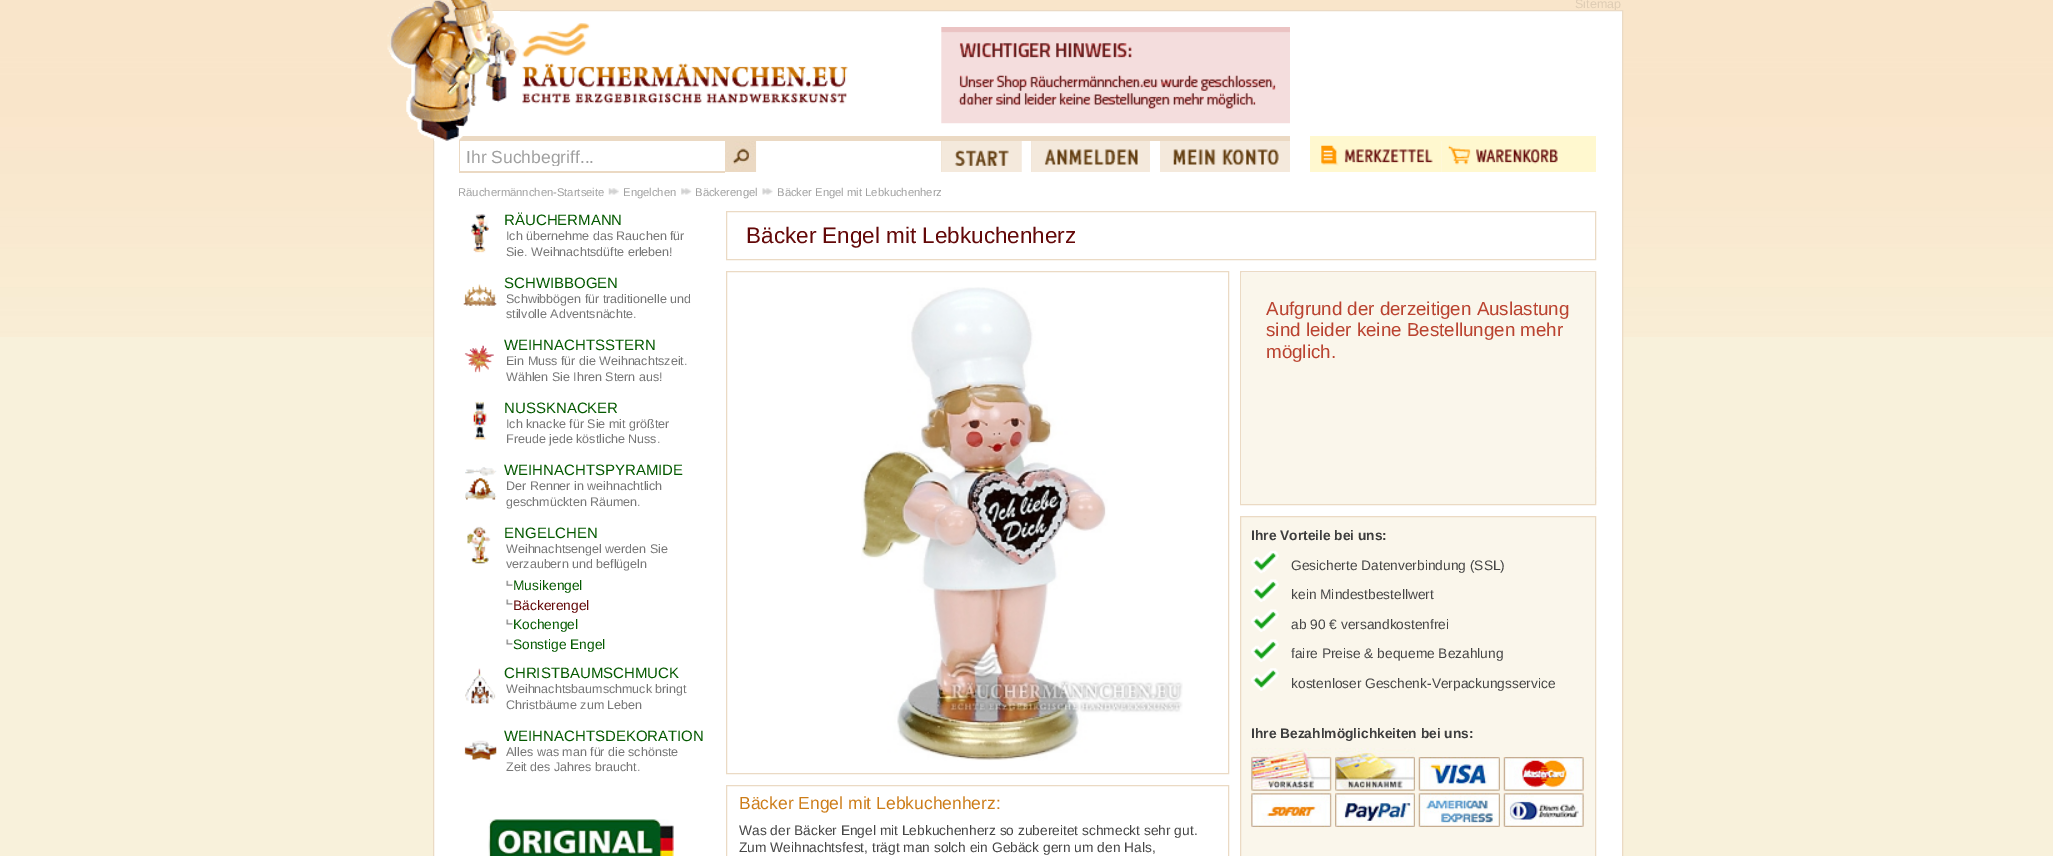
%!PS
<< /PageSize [2053 856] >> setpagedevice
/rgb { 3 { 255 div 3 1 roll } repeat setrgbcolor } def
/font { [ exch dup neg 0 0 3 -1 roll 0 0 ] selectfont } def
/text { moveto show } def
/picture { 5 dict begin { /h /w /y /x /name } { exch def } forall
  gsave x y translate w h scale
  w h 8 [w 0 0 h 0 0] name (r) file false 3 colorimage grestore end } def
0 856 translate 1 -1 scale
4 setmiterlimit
248 241 219 rgb
0 0 2053 856 rectfill
(img_01.rgb) 0 0 2053 337 picture
/LiberationSans-Regular 12.5 font
223 205 181 rgb
(Sitemap) 1575 8 text
255 255 255 rgb
433.5 10.5 moveto 1189 0 rlineto 0 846 rlineto -1189 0 rlineto closepath gsave fill grestore
235 218 196 rgb
stroke
(img_02.rgb) 522 23 326 81 picture
(img_04.rgb) 941 27 349 97 picture
235 217 195 rgb
459 136 831 5 rectfill
(img_03.rgb) 387 0 133 141 picture
459 141 266 32 rectfill
255 255 255 rgb
460 141 265 30 rectfill
gsave
466 146 253 20 rectclip
/LiberationSans-Regular 17.5 font
160 160 160 rgb
(Ihr Suchbegriff...) 466 163 text
grestore
(img_05.rgb) 725 141 32 31 picture
(img_06.rgb) 941 141 81 31 picture
(img_07.rgb) 941 141 81 31 picture
(img_08.rgb) 941 141 80 31 picture
(img_09.rgb) 1031 141 1 31 picture
(img_10.rgb) 1031 141 119 31 picture
(img_11.rgb) 1160 141 130 31 picture
255 248 207 rgb
1310 136 286 5 rectfill
(img_12.rgb) 1310 141 132 31 picture
(img_13.rgb) 1441 141 155 31 picture
/LiberationSans-Regular 11.25 font
160 160 160 rgb
(Räuchermännchen-Startseite) 458 196 text
(img_14.rgb) 608 188 11 7 picture
(Engelchen) 623 196 text
(img_15.rgb) 681 188 11 7 picture
(Bäckerengel) 695 196 text
(img_16.rgb) 762 188 11 7 picture
(Bäcker Engel mit Lebkuchenherz) 777 196 text
(img_17.rgb) 471 214 18 39 picture
/LiberationSans-Regular 15 font
4 89 0 rgb
(RÄUCHERMANN) 504 225 text
/LiberationSans-Regular 12.5 font
119 119 119 rgb
(Ich übernehme das Rauchen für) 506 240 text
(Sie. Weihnachtsdüfte erleben!) 506 256 text
(img_18.rgb) 463 284 34 22 picture
/LiberationSans-Regular 15 font
4 89 0 rgb
(SCHWIBBOGEN) 504 288 text
/LiberationSans-Regular 12.5 font
119 119 119 rgb
(Schwibbögen für traditionelle und) 506 303 text
(stilvolle Adventsnächte.) 506 318 text
(img_19.rgb) 464 345 30 28 picture
/LiberationSans-Regular 15 font
4 89 0 rgb
(WEIHNACHTSSTERN) 504 350 text
/LiberationSans-Regular 12.5 font
119 119 119 rgb
(Ein Muss für die Weihnachtszeit.) 506 365 text
(Wählen Sie Ihren Stern aus!) 506 381 text
(img_20.rgb) 473 401 14 39 picture
/LiberationSans-Regular 15 font
4 89 0 rgb
(NUSSKNACKER) 504 413 text
/LiberationSans-Regular 12.5 font
119 119 119 rgb
(Ich knacke für Sie mit größter) 506 428 text
(Freude jede köstliche Nuss.) 506 443 text
(img_21.rgb) 465 467 32 33 picture
/LiberationSans-Regular 15 font
4 89 0 rgb
(WEIHNACHTSPYRAMIDE) 504 475 text
/LiberationSans-Regular 12.5 font
119 119 119 rgb
(Der Renner in weihnachtlich) 506 490 text
(geschmückten Räumen.) 506 506 text
(img_22.rgb) 467 526 24 38 picture
/LiberationSans-Regular 15 font
4 89 0 rgb
(ENGELCHEN) 504 538 text
/LiberationSans-Regular 12.5 font
119 119 119 rgb
(Weihnachtsengel werden Sie) 506 553 text
(verzaubern und beflügeln) 506 568 text
(img_23.rgb) 506 580 7 6 picture
/LiberationSans-Regular 13.75 font
4 89 0 rgb
(Musikengel) 513 590 text
(img_24.rgb) 506 599 7 6 picture
99 8 8 rgb
(Bäckerengel) 513 610 text
(img_24.rgb) 506 619 7 6 picture
4 89 0 rgb
(Kochengel) 513 629 text
(img_24.rgb) 506 639 7 6 picture
(Sonstige Engel) 513 649 text
(img_25.rgb) 465 668 31 36 picture
/LiberationSans-Regular 15 font
(CHRISTBAUMSCHMUCK) 504 678 text
/LiberationSans-Regular 12.5 font
119 119 119 rgb
(Weihnachtsbaumschmuck bringt) 506 693 text
(Christbäume zum Leben) 506 709 text
/LiberationSans-Regular 15 font
4 89 0 rgb
(WEIHNACHTSDEKORATION) 504 741 text
(img_26.rgb) 464 740 33 20 picture
/LiberationSans-Regular 12.5 font
119 119 119 rgb
(Alles was man für die schönste) 506 756 text
(Zeit des Jahres braucht.) 506 771 text
(img_27.rgb) 488 819 186 37 picture
235 218 196 rgb
726.5 211.5 869 48 rectstroke
/LiberationSans-Regular 22.5 font
99 8 8 rgb
(Bäcker Engel mit Lebkuchenherz) 746 243 text
(img_28.rgb) 1596 386 1 118 picture
235 218 196 rgb
1240.5 271.5 355 233 rectstroke
250 246 235 rgb
1241 273 354 231 rectfill
/LiberationSans-Regular 18.75 font
186 67 48 rgb
(Aufgrund der derzeitigen Auslastung) 1266 315 text
(sind leider keine Bestellungen mehr) 1266 336 text
(möglich.) 1266 358 text
250 246 235 rgb
1240.5 516.5 moveto 355 0 rlineto 0 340 rlineto -355 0 rlineto closepath gsave fill grestore
235 218 196 rgb
stroke
/LiberationSans-Bold 13.75 font
61 61 61 rgb
(Ihre Vorteile bei uns:) 1251 540 text
(img_29.rgb) 1251 550 28 24 picture
/LiberationSans-Regular 13.75 font
69 69 69 rgb
(Gesicherte Datenverbindung \(SSL\)) 1291 570 text
(img_30.rgb) 1251 579 28 23 picture
(kein Mindestbestellwert) 1291 599 text
(img_30.rgb) 1251 609 28 23 picture
(ab 90 € versandkostenfrei) 1291 629 text
(img_30.rgb) 1251 639 28 23 picture
(faire Preise & bequeme Bezahlung) 1291 658 text
(img_31.rgb) 1251 668 28 23 picture
(kostenloser Geschenk-Verpackungsservice) 1291 688 text
/LiberationSans-Bold 13.75 font
61 61 61 rgb
(Ihre Bezahlmöglichkeiten bei uns:) 1251 738 text
(img_32.rgb) 1251 748 81 43 picture
(img_33.rgb) 1335 748 80 43 picture
(img_34.rgb) 1418 757 82 34 picture
(img_35.rgb) 1503 757 81 34 picture
(img_36.rgb) 1251 793 81 34 picture
(img_37.rgb) 1335 793 80 34 picture
(img_38.rgb) 1418 793 82 34 picture
(img_39.rgb) 1503 793 81 34 picture
235 218 196 rgb
726.5 271.5 502 502 rectstroke
(img_40.rgb) 861 287 322 474 picture
726.5 785.5 502 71 rectstroke
/LiberationSans-Regular 17.5 font
205 125 25 rgb
(Bäcker Engel mit Lebkuchenherz:) 739 809 text
/LiberationSans-Regular 13.75 font
69 69 69 rgb
(Was der Bäcker Engel mit Lebkuchenherz so zubereitet schmeckt sehr gut.) 739 835 text
(Zum Weihnachtsfest, trägt man solch ein Gebäck gern um den Hals,) 739 852 text
showpage
